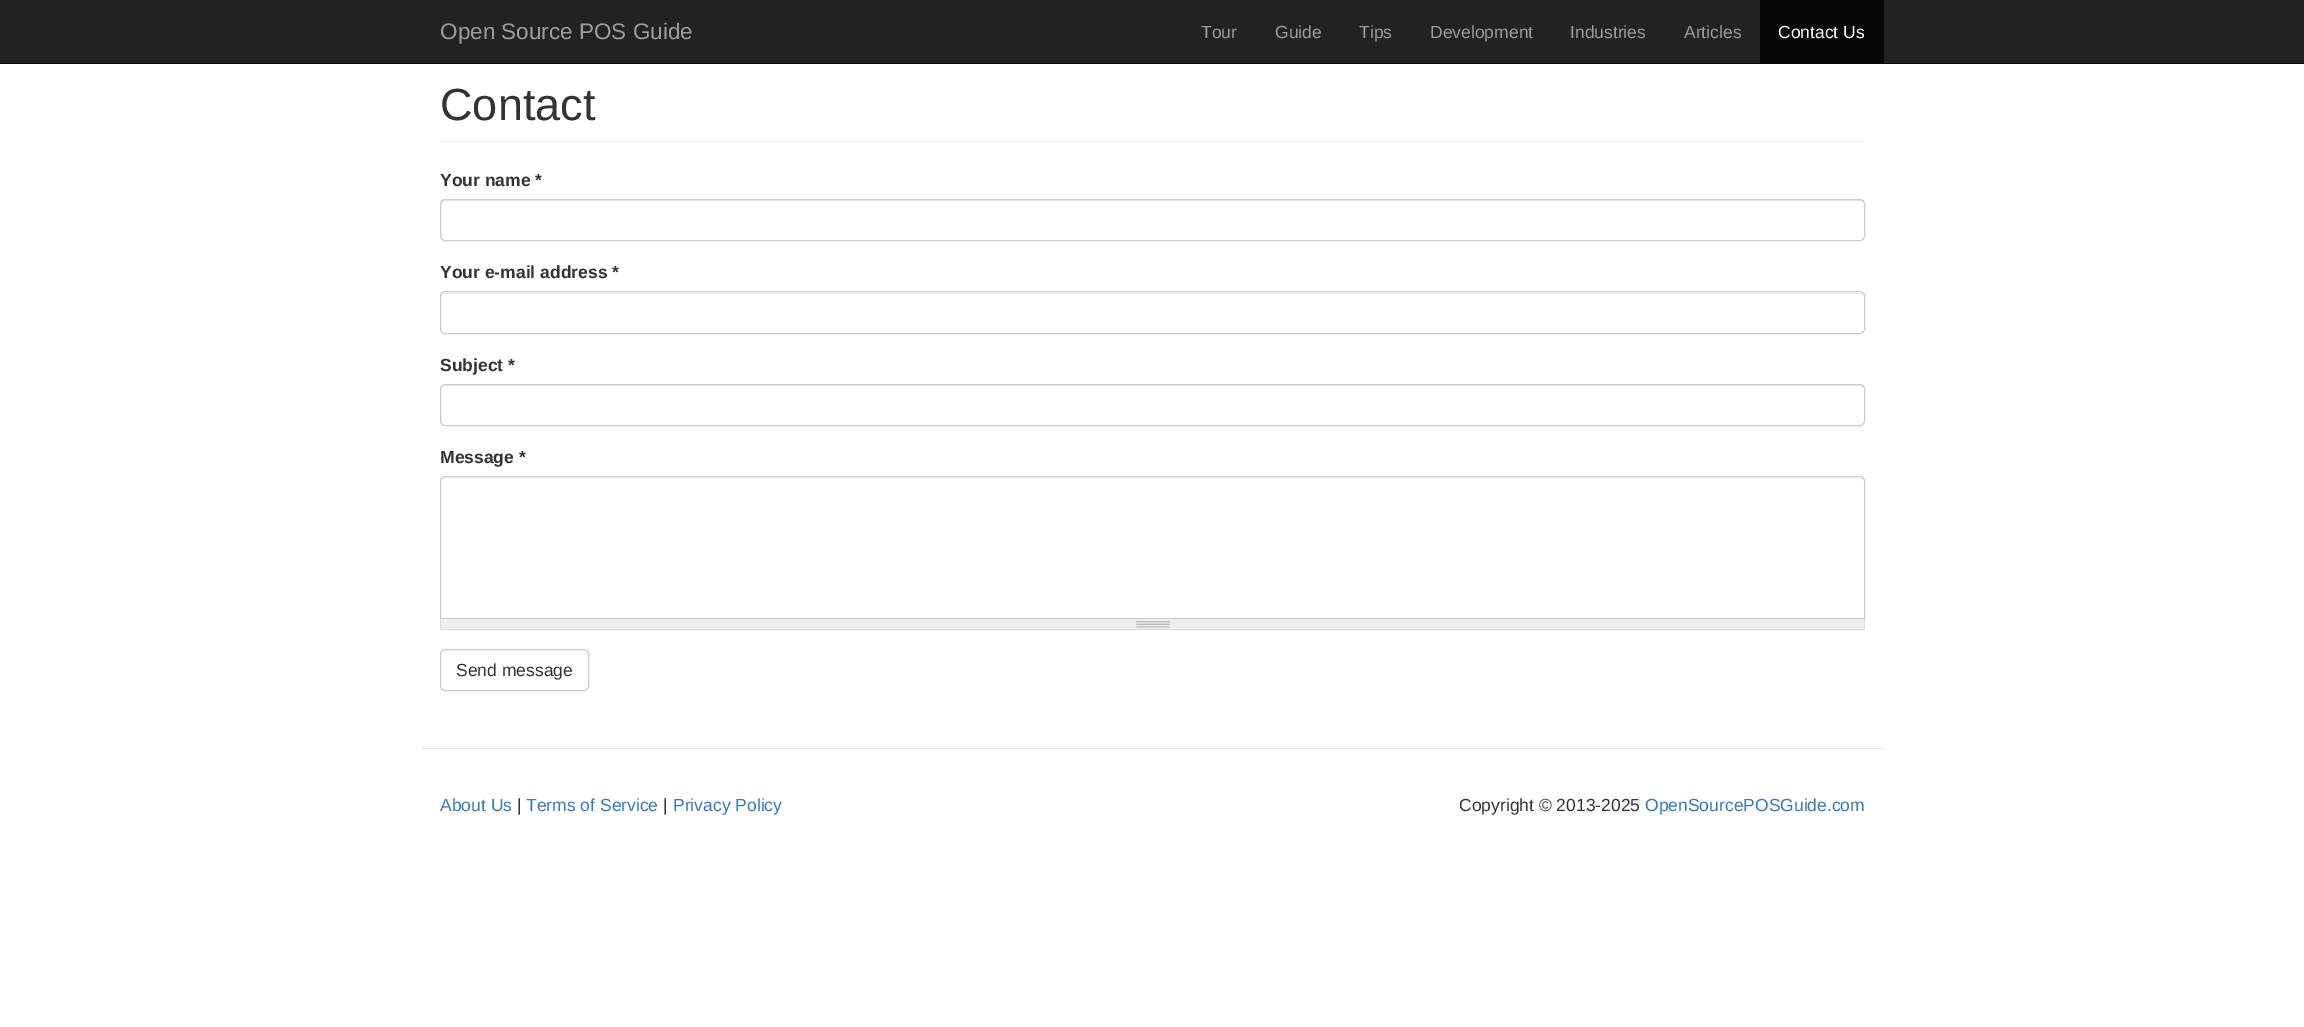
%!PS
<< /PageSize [2304 1027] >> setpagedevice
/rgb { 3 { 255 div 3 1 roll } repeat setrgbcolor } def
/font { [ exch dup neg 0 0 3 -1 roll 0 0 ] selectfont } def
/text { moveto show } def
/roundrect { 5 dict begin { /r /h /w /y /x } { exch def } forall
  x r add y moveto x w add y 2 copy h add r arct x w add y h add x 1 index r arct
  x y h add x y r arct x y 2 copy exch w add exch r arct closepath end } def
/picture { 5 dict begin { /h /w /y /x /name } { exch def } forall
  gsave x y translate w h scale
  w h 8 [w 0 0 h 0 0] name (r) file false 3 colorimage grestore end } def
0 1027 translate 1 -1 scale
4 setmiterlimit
255 255 255 rgb
0 0 2304 1027 rectfill
34 34 34 rgb
0 0 2304 63 rectfill
8 8 8 rgb
0 63 2304 1 rectfill
1760 0 124 63 rectfill
238 238 238 rgb
440 141 1425 1 rectfill
236 236 236 rgb
445 201 moveto 1415 0 rlineto 2 0 4 2 4 4 rcurveto 0 -1 rlineto 0 -2 -2 -4 -4 -4 rcurveto -1415 0 rlineto -2 0 -4 2 -4 4 rcurveto 0 1 rlineto 0 -2 2 -4 4 -4 rcurveto closepath fill
204 204 204 rgb
440.5 199.5 1424 41 4.5 roundrect stroke
236 236 236 rgb
445 294 moveto 1415 0 rlineto 2 0 4 1 4 4 rcurveto 0 -1 rlineto 0 -2 -2 -4 -4 -4 rcurveto -1415 0 rlineto -2 0 -4 2 -4 4 rcurveto 0 1 rlineto 0 -3 2 -4 4 -4 rcurveto closepath fill
204 204 204 rgb
440.5 291.5 1424 42 4.5 roundrect stroke
236 236 236 rgb
445 386 moveto 1415 0 rlineto 2 0 4 2 4 4 rcurveto 0 -1 rlineto 0 -2 -2 -4 -4 -4 rcurveto -1415 0 rlineto -2 0 -4 2 -4 4 rcurveto 0 1 rlineto 0 -2 2 -4 4 -4 rcurveto closepath fill
204 204 204 rgb
440.5 384.5 1424 41 4.5 roundrect stroke
236 236 236 rgb
445 479 moveto 1415 0 rlineto 2 0 4 1 4 3 rcurveto 0 -2 -2 -4 -4 -4 rcurveto -1415 0 rlineto -2 0 -4 2 -4 4 rcurveto 0 -2 2 -3 4 -3 rcurveto closepath fill
204 204 204 rgb
445 476.5 moveto 1415 0 rlineto 2.5 0 4.5 2 4.5 4.5 rcurveto 0 137.5 rlineto -1424 0 rlineto 0 -137.5 rlineto 0 -2.5 2 -4.5 4.5 -4.5 rcurveto closepath stroke
238 238 238 rgb
441 619 1423 10 rectfill
(img_01.rgb) 1136 621 34 7 picture
221 221 221 rgb
1864 619 1 11 rectfill
440 629 1425 1 rectfill
440 619 1 11 rectfill
204 204 204 rgb
440.5 649.5 148 41 4.5 roundrect stroke
229 229 229 rgb
421 748 1463 1 rectfill
/LiberationSans-Regular 22.5 font
157 157 157 rgb
(Open Source POS Guide) 440 39 text
/LiberationSans-Regular 17.5 font
(Tour) 1201 38 text
(Guide) 1275 38 text
(Tips) 1359 38 text
(Development) 1430 38 text
(Industries) 1570 38 text
(Articles) 1684 38 text
255 255 255 rgb
(Contact Us) 1778 38 text
/LiberationSans-Regular 45 font
51 51 51 rgb
(Contact) 440 120 text
/LiberationSans-Bold 17.5 font
(Your name *) 440 186 text
(Your e-mail address *) 440 278 text
(Subject *) 440 371 text
(Message *) 440 463 text
/LiberationSans-Regular 17.5 font
(Send message) 456 676 text
51 122 183 rgb
(About Us) 440 811 text
51 51 51 rgb
(|) 517 811 text
51 122 183 rgb
(Terms of Service) 526 811 text
51 51 51 rgb
(|) 663 811 text
51 122 183 rgb
(Privacy Policy) 673 811 text
51 51 51 rgb
(Copyright © 2013-2025) 1459 811 text
51 122 183 rgb
(OpenSourcePOSGuide.com) 1645 811 text
showpage
